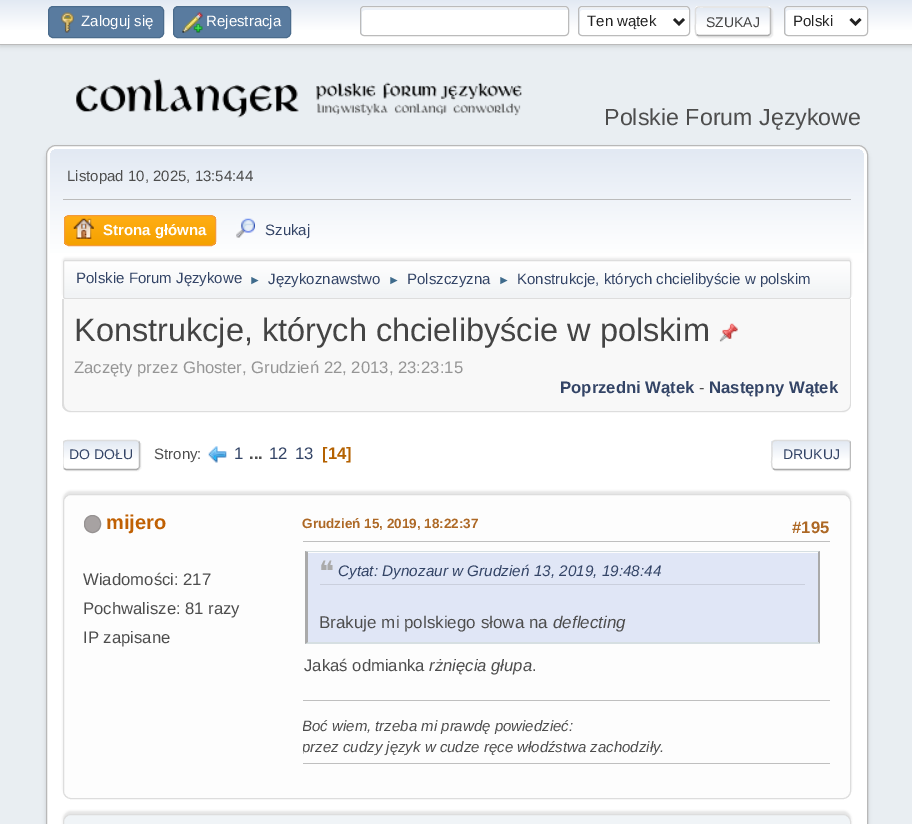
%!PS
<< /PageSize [912 824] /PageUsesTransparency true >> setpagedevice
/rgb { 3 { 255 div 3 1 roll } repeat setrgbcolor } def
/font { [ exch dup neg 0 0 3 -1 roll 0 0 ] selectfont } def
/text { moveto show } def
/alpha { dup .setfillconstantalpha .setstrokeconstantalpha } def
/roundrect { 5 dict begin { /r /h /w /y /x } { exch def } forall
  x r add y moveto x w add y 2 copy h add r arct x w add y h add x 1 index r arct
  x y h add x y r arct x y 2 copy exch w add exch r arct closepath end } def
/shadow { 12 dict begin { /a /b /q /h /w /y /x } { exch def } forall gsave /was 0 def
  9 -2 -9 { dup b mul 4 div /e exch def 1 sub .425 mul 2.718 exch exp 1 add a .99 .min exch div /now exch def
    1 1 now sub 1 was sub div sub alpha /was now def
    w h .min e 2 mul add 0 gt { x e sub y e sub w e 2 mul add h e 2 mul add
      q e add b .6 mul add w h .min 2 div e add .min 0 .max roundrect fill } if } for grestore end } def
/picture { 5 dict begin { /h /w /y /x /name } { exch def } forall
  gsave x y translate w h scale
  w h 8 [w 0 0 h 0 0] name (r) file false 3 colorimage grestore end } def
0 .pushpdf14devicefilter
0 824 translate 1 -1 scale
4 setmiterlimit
233 238 242 rgb
0 0 912 824 rectfill
0 0 0 rgb
0 1 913 45 0 2.5 0.16 shadow
gsave 0 0 moveto 912 0 rlineto 0 44 rlineto -912 0 rlineto closepath clip newpath
<< /ShadingType 2 /ColorSpace /DeviceRGB /Coords [456 0 456 44] /Extend [true true] /Function << /FunctionType 3 /Domain [0 1] /Functions [<< /FunctionType 2 /Domain [0 1] /C0 [0.886 0.914 0.953] /C1 [1 1 1] /N 1 >> << /FunctionType 2 /Domain [0 1] /C0 [1 1 1] /C1 [1 1 1] /N 1 >>] /Bounds [0.7] /Encode [0 1 0 1] >> >> shfill grestore
187 187 187 rgb
0 44 912 1 rectfill
89 123 159 rgb
48.5 6.5 115 31 4.5 roundrect gsave fill grestore
74 107 140 rgb
stroke
(img_01.rgb) 61 12 13 21 picture
89 123 159 rgb
173.5 6.5 117 31 4.5 roundrect gsave fill grestore
74 107 140 rgb
stroke
(img_02.rgb) 182 12 21 21 picture
255 255 255 rgb
360 6 209 30 4 roundrect fill
236 241 248 rgb
365 10 moveto 201 0 rlineto 2 0 rlineto 0 -1 -1 -2 -2 -2 rcurveto -202 0 rlineto -2 0 -3 1 -3 2 rcurveto 0 22 rlineto 0 1 0 2 1 3 rcurveto 0 -23 rlineto 0 -1 2 -2 3 -2 rcurveto closepath fill
187 187 187 rgb
360.5 6.5 208 29 3.5 roundrect stroke
255 255 255 rgb
578 6 112 30 4 roundrect fill
236 241 248 rgb
582 10 moveto 107 0 rlineto 0 -1 -1 -2 -3 -2 rcurveto -104 0 rlineto -2 0 -3 1 -3 2 rcurveto 0 22 rlineto 0 1 0 2 1 3 rcurveto 0 -23 rlineto 0 -1 1 -2 2 -2 rcurveto closepath fill
187 187 187 rgb
578.5 6.5 111 29 3.5 roundrect stroke
34 34 34 rgb
2.5 setlinewidth
674 19 moveto 5 5 rlineto 5 -5 rlineto stroke
221 221 221 rgb
696 8 77 30 4 0.5 0.57 shadow
gsave
695 6 76 30 4 roundrect clip newpath
gsave 695 6 moveto 76 0 rlineto 0 2 rlineto -76 0 rlineto closepath clip newpath
<< /ShadingType 2 /ColorSpace /DeviceRGB /Coords [733 -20 733 7.5] /Extend [true true] /Function << /FunctionType 3 /Domain [0 1] /Functions [<< /FunctionType 2 /Domain [0 1] /C0 [0.886 0.914 0.953] /C1 [1 1 1] /N 1 >> << /FunctionType 2 /Domain [0 1] /C0 [1 1 1] /C1 [1 1 1] /N 1 >>] /Bounds [0.7] /Encode [0 1 0 1] >> >> shfill grestore
gsave 695 8 moveto 76 0 rlineto 0 27 rlineto -76 0 rlineto closepath clip newpath
<< /ShadingType 2 /ColorSpace /DeviceRGB /Coords [733 7.5 733 35] /Extend [true true] /Function << /FunctionType 3 /Domain [0 1] /Functions [<< /FunctionType 2 /Domain [0 1] /C0 [0.886 0.914 0.953] /C1 [1 1 1] /N 1 >> << /FunctionType 2 /Domain [0 1] /C0 [1 1 1] /C1 [1 1 1] /N 1 >>] /Bounds [0.7] /Encode [0 1 0 1] >> >> shfill grestore
grestore
187 187 187 rgb
1.2 setlinewidth
769.5 8 moveto 1 0.5 1 1 1 2 rcurveto 0 22.5 rlineto 0 1 0 1.5 -1 2 rcurveto stroke
170 170 170 rgb
769.5 34.5 moveto -1.5 1 rlineto -69.5 0 rlineto -2 -1 rlineto stroke
221 221 221 rgb
696.5 34.5 moveto -2 -2 -1 -10.5 -1 -13.5 rcurveto 0 -16.5 -2.5 -14 14.5 -14 rcurveto 57.5 0 rlineto 2 1 rlineto stroke
255 255 255 rgb
784 6 84 30 4 roundrect fill
236 241 248 rgb
789 10 moveto 77 0 rlineto 0 -1 -1 -2 -2 -2 rcurveto -76 0 rlineto -2 0 -3 1 -3 2 rcurveto 0 22 rlineto 0 1 0 2 1 3 rcurveto 0 -23 rlineto 0 -1 1 -2 3 -2 rcurveto closepath fill
187 187 187 rgb
1 setlinewidth
784.5 6.5 83 29 3.5 roundrect stroke
34 34 34 rgb
2.5 setlinewidth
850.5 19 moveto 5 5 rlineto 5 -5 rlineto stroke
(img_03.rgb) 76 78 446 40 picture
0 0 0 rgb
46 148 822 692 10 2 0.14 shadow
255 255 255 rgb
46.5 145.5 821 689 9.5 roundrect gsave fill grestore
184 184 184 rgb
1 setlinewidth
stroke
gsave 58 149 moveto 798 0 rlineto 4.5 0 8 3.5 8 8 rcurveto 0 144 rlineto -814 0 rlineto 0 -144 rlineto 0 -4.5 3.5 -8 8 -8 rcurveto closepath clip newpath
<< /ShadingType 2 /ColorSpace /DeviceRGB /Coords [457 149 457 301] /Extend [true true] /Function << /FunctionType 3 /Domain [0 1] /Functions [<< /FunctionType 2 /Domain [0 1] /C0 [0.886 0.914 0.953] /C1 [1 1 1] /N 1 >> << /FunctionType 2 /Domain [0 1] /C0 [1 1 1] /C1 [1 1 1] /N 1 >>] /Bounds [0.7] /Encode [0 1 0 1] >> >> shfill grestore
187 187 187 rgb
63 199 788 1 rectfill
gsave
64 215 152 31 5 roundrect clip newpath
gsave 64 216 moveto 152 0 rlineto 0 29 rlineto -152 0 rlineto closepath clip newpath
<< /ShadingType 2 /ColorSpace /DeviceRGB /Coords [140 216 140 245] /Extend [true true] /Function << /FunctionType 2 /Domain [0 1] /C0 [1 0.682 0.078] /C1 [0.961 0.631 0] /N 1 >> >> shfill grestore
grestore
244 154 58 rgb
64.5 215.5 151 30 4.5 roundrect stroke
(img_04.rgb) 73 218 21 21 picture
(img_05.rgb) 236 218 19 20 picture
0 0 0 rgb
63 258 788 38 2.5 1 0.08 shadow
gsave
63 260 788 39 2.5 roundrect clip newpath
gsave 63 261 moveto 788 0 rlineto 0 37 rlineto -788 0 rlineto closepath clip newpath
<< /ShadingType 2 /ColorSpace /DeviceRGB /Coords [457 261 457 298] /Extend [true true] /Function << /FunctionType 3 /Domain [0 1] /Functions [<< /FunctionType 2 /Domain [0 1] /C0 [1 1 1] /C1 [0.945 0.953 0.961] /N 1 >> << /FunctionType 2 /Domain [0 1] /C0 [0.945 0.953 0.961] /C1 [0.945 0.953 0.961] /N 1 >>] /Bounds [0.95] /Encode [0 1 0 1] >> >> shfill grestore
grestore
221 221 221 rgb
63.5 260.5 787 38 2 roundrect stroke
248 248 248 rgb
63 299 moveto 788 0 rlineto 0 105 rlineto 0 5 -4 9 -9 9 rcurveto -770 0 rlineto -5 0 -9 -4 -9 -9 rcurveto closepath fill
221 221 221 rgb
62 299 moveto 789 0 rlineto 0 105 rlineto 0 5 -4 8 -9 8 rcurveto -771 0 rlineto -5 0 -9 -3 -9 -8 rcurveto closepath 64 299 moveto 786 0 rlineto 0 105 rlineto 0 4 -3 7 -8 7 rcurveto -771 0 rlineto -4 0 -7 -3 -7 -7 rcurveto closepath eofill
(img_06.rgb) 719 323 19 19 picture
64 441 77 30 4 0.5 0.57 shadow
255 255 255 rgb
63 440 77 30 4 roundrect fill
gsave
63 440 77 30 4 roundrect clip newpath
gsave 63 441 moveto 77 0 rlineto 0 28 rlineto -77 0 rlineto closepath clip newpath
<< /ShadingType 2 /ColorSpace /DeviceRGB /Coords [101 441 101 469] /Extend [true true] /Function << /FunctionType 3 /Domain [0 1] /Functions [<< /FunctionType 2 /Domain [0 1] /C0 [0.886 0.914 0.953] /C1 [1 1 1] /N 1 >> << /FunctionType 2 /Domain [0 1] /C0 [1 1 1] /C1 [1 1 1] /N 1 >>] /Bounds [0.7] /Encode [0 1 0 1] >> >> shfill grestore
grestore
187 187 187 rgb
1.2 setlinewidth
138.5 441.5 moveto 0.5 0.5 1 1.5 1 2.5 rcurveto 0 22 rlineto 0 1 -0.5 2 -1 2.5 rcurveto stroke
170 170 170 rgb
138.5 468.5 moveto -2 1 rlineto -70.5 0 rlineto -2 -1 rlineto stroke
gsave
63 431 788 48 rectclip
221 221 221 rgb
64 468.5 moveto -2 -2 -1 -11 -1 -13.5 rcurveto 0 -16.5 -2.5 -14.5 15 -14.5 rcurveto 58 0 rlineto 2.5 1 rlineto stroke
grestore
(img_07.rgb) 208 446 19 17 picture
gsave
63 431 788 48 rectclip
221 221 221 rgb
773 441 80 30 4 0.5 0.57 shadow
grestore
gsave
771 440 80 30 4 roundrect clip newpath
gsave 771 441 moveto 80 0 rlineto 0 28 rlineto -80 0 rlineto closepath clip newpath
<< /ShadingType 2 /ColorSpace /DeviceRGB /Coords [811 441 811 469] /Extend [true true] /Function << /FunctionType 3 /Domain [0 1] /Functions [<< /FunctionType 2 /Domain [0 1] /C0 [0.886 0.914 0.953] /C1 [1 1 1] /N 1 >> << /FunctionType 2 /Domain [0 1] /C0 [1 1 1] /C1 [1 1 1] /N 1 >>] /Bounds [0.7] /Encode [0 1 0 1] >> >> shfill grestore
grestore
gsave
63 431 788 48 rectclip
187 187 187 rgb
849.5 441.5 moveto 1 0.5 1 1.5 1 2.5 rcurveto 0 22 rlineto 0 1 0 2 -1 2.5 rcurveto stroke
grestore
849.5 468.5 moveto -1.5 1 rlineto -73.5 0 rlineto -1.5 -1 rlineto stroke
221 221 221 rgb
773 468.5 moveto -2.5 -2 -1 -11 -1 -13.5 rcurveto 0 -17 -2.5 -14.5 15 -14.5 rcurveto 60.5 0 rlineto 2 1 rlineto stroke
0 0 0 rgb
63 491 788 305 8 1 0.1 shadow
253 253 253 rgb
63.5 494.5 787 304 7.5 roundrect gsave fill grestore
221 221 221 rgb
1 setlinewidth
stroke
167 162 162 rgb
84.5 515.5 16 17 8 roundrect gsave fill grestore
150 146 146 rgb
stroke
191 191 191 rgb
303 541 527 1 rectfill
224 230 246 rgb
308 553 510 89 rectfill
214 223 226 rgb
305 551 moveto 515 0 rlineto -2 1 rlineto -510 0 rlineto closepath fill
170 170 170 rgb
820 551 moveto 0 93 rlineto -2 -2 rlineto 0 -90 rlineto closepath fill
214 223 226 rgb
820 644 moveto -515 0 rlineto 3 -2 rlineto 510 0 rlineto closepath fill
170 170 170 rgb
305 644 moveto 0 -93 rlineto 3 1 rlineto 0 90 rlineto closepath fill
202 207 221 rgb
320 584 485 1 rectfill
191 191 191 rgb
303 700 527 1 rectfill
303 763 527 1 rectfill
0 0 0 rgb
63 811 788 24 8 1 0.1 shadow
240 244 247 rgb
63.5 814.5 787 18 7.5 roundrect gsave fill grestore
221 221 221 rgb
stroke
/LiberationSans-Regular 15 font
255 255 255 rgb
(Zaloguj się) 81 26 text
(Rejestracja) 206 26 text
34 34 34 rgb
(Ten wątek) 587 26 text
/LiberationSans-Regular 14 font
68 68 68 rgb
(SZUKAJ) 706 27 text
/LiberationSans-Regular 15 font
34 34 34 rgb
(Polski) 793 26 text
/LiberationSans-Regular 23.25 font
77 77 77 rgb
(Polskie Forum Językowe) 604 125 text
/LiberationSans-Regular 15 font
(Listopad 10, 2025, 13:54:44) 67 181 text
/LiberationSans-Bold 15 font
255 255 255 rgb
(Strona główna) 103 235 text
/LiberationSans-Regular 15 font
51 68 102 rgb
(Szukaj) 265 235 text
(Polskie Forum Językowe) 76 283 text
/LiberationSans-Regular 12 font
63 107 140 rgb
(►) 249 284 text
/LiberationSans-Regular 15 font
51 68 102 rgb
(Językoznawstwo) 268 284 text
/LiberationSans-Regular 12 font
63 107 140 rgb
(►) 388 284 text
/LiberationSans-Regular 15 font
51 68 102 rgb
(Polszczyzna) 407 284 text
/LiberationSans-Regular 12 font
63 107 140 rgb
(►) 498 284 text
/LiberationSans-Regular 15 font
51 68 102 rgb
(Konstrukcje, których chcielibyście w polskim) 517 284 text
/LiberationSans-Regular 32.5 font
68 68 68 rgb
(Konstrukcje, których chcielibyście w polskim) 74 341 text
/LiberationSans-Regular 16.7 font
149 149 149 rgb
(Zaczęty przez Ghoster, Grudzień 22, 2013, 23:23:15) 74 373 text
/LiberationSans-Bold 16.7 font
51 68 102 rgb
(Poprzedni Wątek) 560 393 text
/LiberationSans-Regular 16.7 font
77 77 77 rgb
(-) 699 393 text
/LiberationSans-Bold 16.7 font
51 68 102 rgb
(Następny Wątek) 709 393 text
/LiberationSans-Regular 14 font
(DO DOŁU) 69 459 text
/LiberationSans-Regular 15 font
77 77 77 rgb
(Strony:) 154 459 text
/LiberationSans-Regular 16.7 font
51 68 102 rgb
(1) 234 459 text
/LiberationSans-Bold 16.7 font
77 77 77 rgb
(...) 249 459 text
/LiberationSans-Regular 16.7 font
51 68 102 rgb
(12) 269 459 text
(13) 295 459 text
/LiberationSans-Bold 16.7 font
180 97 0 rgb
([14]) 322 459 text
/LiberationSans-Regular 14 font
51 68 102 rgb
(DRUKUJ) 783 459 text
/LiberationSans-Bold 20 font
192 96 2 rgb
(mijero) 106 529 text
/LiberationSans-Regular 16.7 font
77 77 77 rgb
(Wiadomości: 217) 83 585 text
(Pochwalisze: 81 razy) 83 614 text
(IP zapisane) 83 643 text
/LiberationSans-Bold 13.5 font
173 104 37 rgb
(Grudzień 15, 2019, 18:22:37) 302 528 text
/LiberationSans-Bold 16.7 font
(#195) 792 533 text
/DejaVuSans-Regular 28 font
170 170 170 rgb
(❝) 319 581 text
/LiberationSans-Italic 15.3 font
51 68 102 rgb
(Cytat: Dynozaur w Grudzień 13, 2019, 19:48:44) 338 576 text
/LiberationSans-Regular 17 font
77 77 77 rgb
(Brakuje mi polskiego słowa na) 319 628 text
/LiberationSans-Italic 17 font
(deflecting) 553 628 text
/LiberationSans-Regular 16.7 font
(Jakaś odmianka) 304 671 text
/LiberationSans-Italic 16.7 font
(rżnięcia głupa) 429 671 text
/LiberationSans-Regular 16.7 font
(.) 532 671 text
gsave
303 701 527 62 rectclip
/LiberationSans-Italic 15 font
(Boć wiem, trzeba mi prawdę powiedzieć:) 302 731 text
(przez cudzy język w cudze ręce włodźstwa zachodziły.) 302 752 text
grestore
.poppdf14devicefilter showpage
